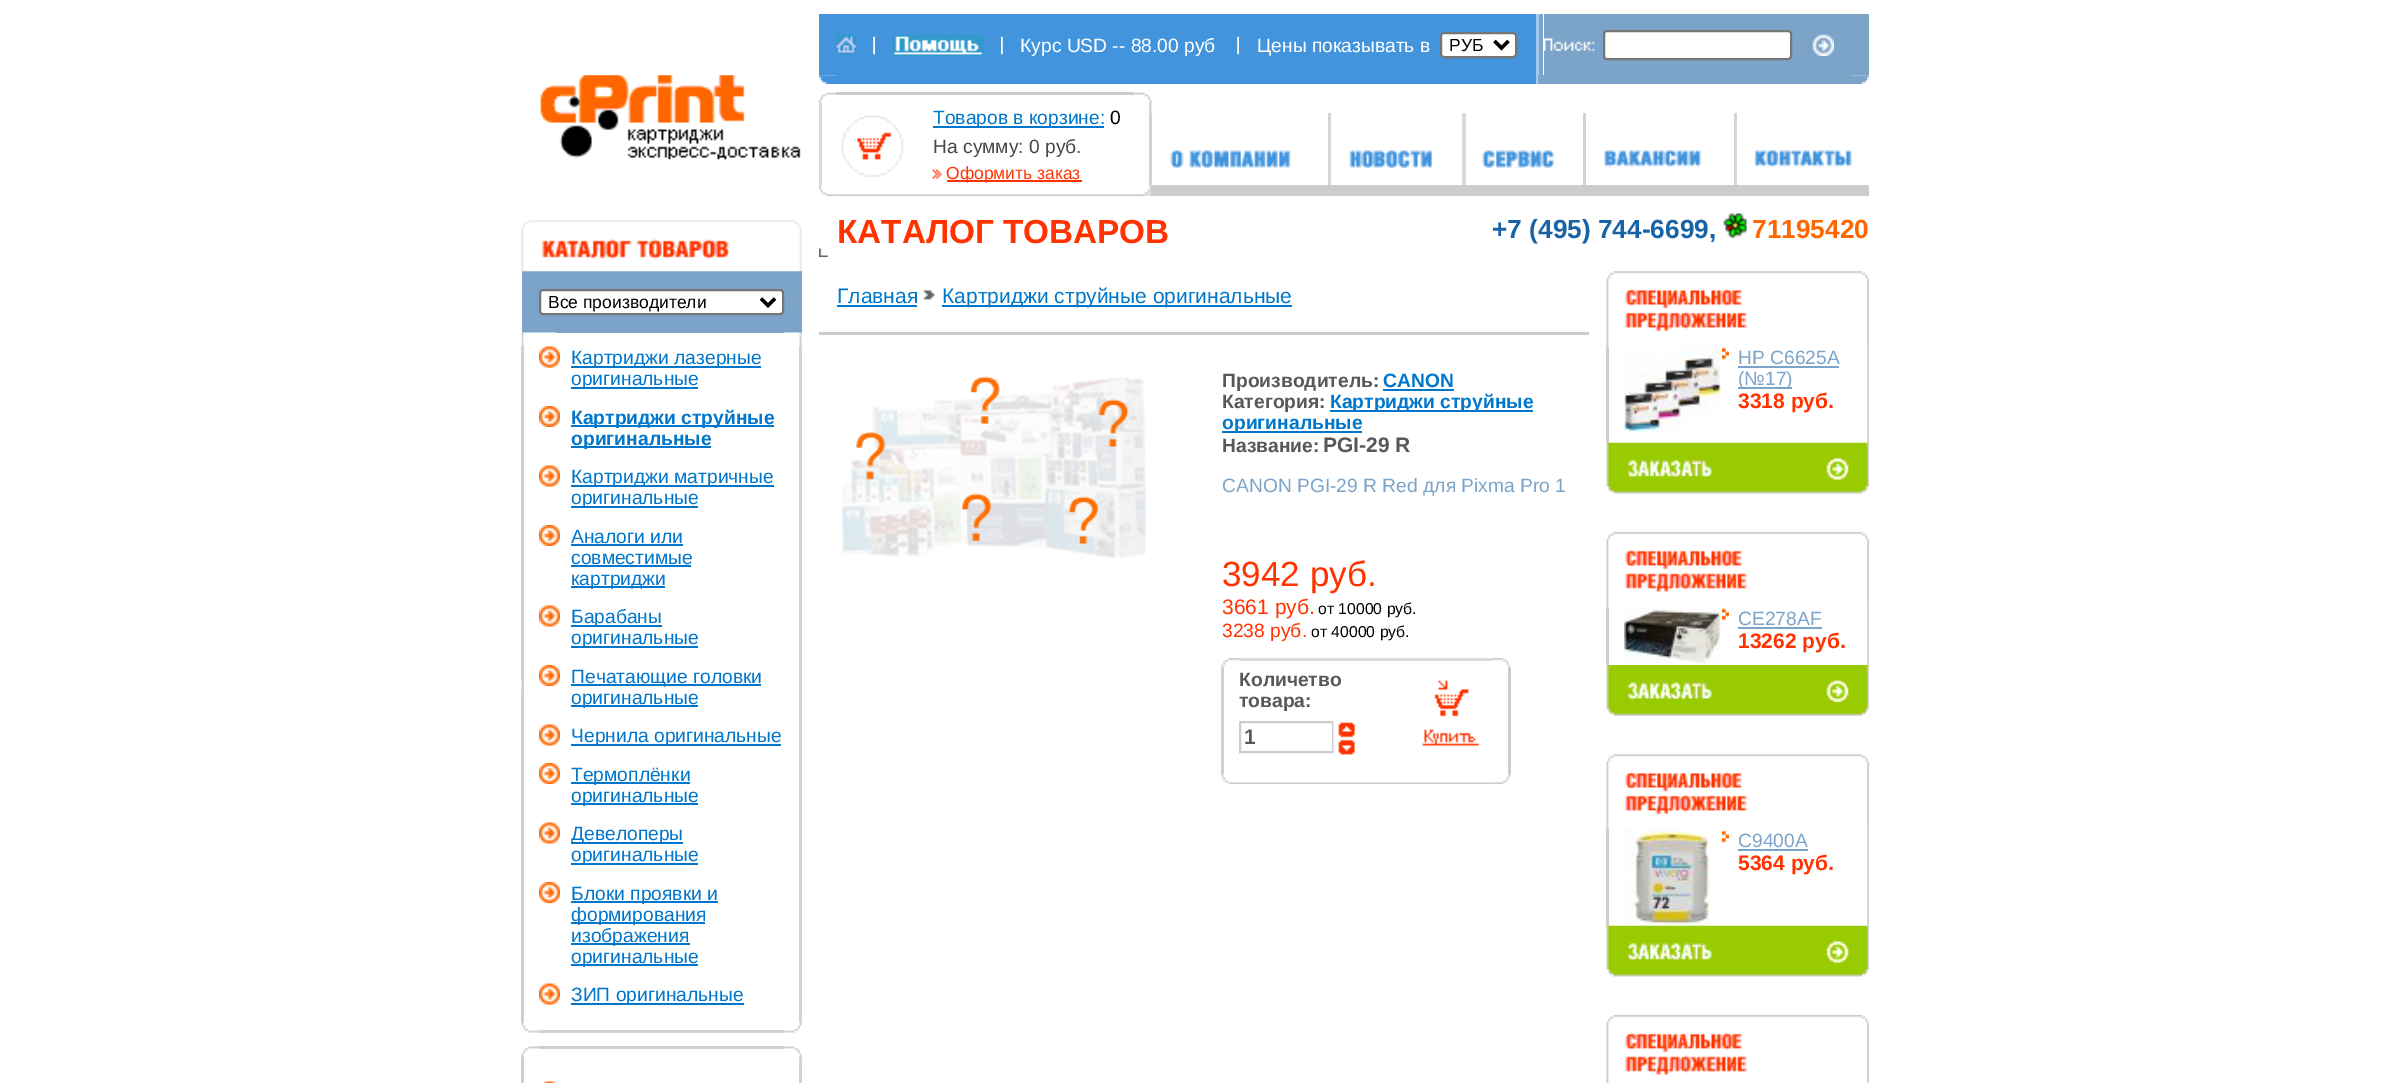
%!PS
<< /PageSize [2407 1083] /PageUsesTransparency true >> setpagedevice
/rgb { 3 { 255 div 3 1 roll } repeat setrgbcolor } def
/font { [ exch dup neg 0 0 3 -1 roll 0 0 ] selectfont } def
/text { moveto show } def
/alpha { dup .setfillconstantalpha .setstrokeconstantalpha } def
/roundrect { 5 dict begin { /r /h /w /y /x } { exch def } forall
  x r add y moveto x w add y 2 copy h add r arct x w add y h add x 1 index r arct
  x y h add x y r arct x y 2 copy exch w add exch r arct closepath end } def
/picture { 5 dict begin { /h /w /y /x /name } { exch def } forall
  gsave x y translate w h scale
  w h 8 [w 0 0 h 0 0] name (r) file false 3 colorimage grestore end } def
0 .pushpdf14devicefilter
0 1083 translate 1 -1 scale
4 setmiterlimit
255 255 255 rgb
0 0 2407 1083 rectfill
(img_01.rgb) 540 75 261 85 picture
123 164 200 rgb
522 271 280 62 rectfill
(img_02.rgb) 521 220 281 52 picture
255 255 255 rgb
540 290 243 24 3 roundrect gsave fill grestore
118 118 118 rgb
2 setlinewidth
stroke
0 0 0 rgb
3.5 setlinewidth
761 298.5 moveto 7 7 rlineto 7 -7 rlineto stroke
(img_03.rgb) 521 332 18 15 picture
(img_04.rgb) 539 332 18 1 picture
(img_05.rgb) 784 332 18 15 picture
207 207 207 rgb
521 346 3 676 rectfill
(img_06.rgb) 521 333 1 14 picture
(img_07.rgb) 539 346 21 22 picture
0 119 204 rgb
571 366 190 2 rectfill
571 387 127 2 rectfill
(img_08.rgb) 539 406 21 21 picture
571 425 203 2 rectfill
571 446 140 2 rectfill
(img_07.rgb) 539 465 21 22 picture
571 485 203 2 rectfill
571 506 127 2 rectfill
(img_08.rgb) 539 525 21 21 picture
571 544 112 2 rectfill
571 565 120 2 rectfill
571 586 94 2 rectfill
(img_07.rgb) 539 605 21 22 picture
571 625 91 2 rectfill
571 646 127 2 rectfill
(img_08.rgb) 539 665 21 21 picture
571 684 190 2 rectfill
571 705 127 2 rectfill
(img_07.rgb) 539 724 21 22 picture
571 744 210 2 rectfill
(img_08.rgb) 539 763 21 21 picture
571 782 119 2 rectfill
571 803 127 2 rectfill
(img_07.rgb) 539 822 21 22 picture
571 842 112 2 rectfill
571 863 127 2 rectfill
(img_08.rgb) 539 882 21 21 picture
571 901 147 2 rectfill
571 922 134 2 rectfill
571 943 119 2 rectfill
571 964 127 2 rectfill
(img_07.rgb) 539 983 21 22 picture
571 1003 173 2 rectfill
210 210 210 rgb
799 346 3 676 rectfill
(img_09.rgb) 521 680 1 10 picture
(img_10.rgb) 521 1022 18 11 picture
539 1030 245 3 rectfill
(img_11.rgb) 784 1022 18 11 picture
(img_12.rgb) 521 1046 18 11 picture
207 207 207 rgb
539 1046 245 3 rectfill
(img_13.rgb) 784 1046 18 11 picture
521 1057 3 26 rectfill
(img_14.rgb) 542 1081 15 2 picture
210 210 210 rgb
799 1057 3 26 rectfill
66 148 221 rgb
819 14 717 61 rectfill
161 202 238 rgb
1536 14 3 70 rectfill
123 164 200 rgb
1539 14 4 61 rectfill
1544 14 325 61 rectfill
(img_15.rgb) 1544 38 51 13 picture
(img_16.rgb) 836 35 20 20 picture
(img_17.rgb) 873 36 2 19 picture
(img_18.rgb) 892 35 92 21 picture
(img_19.rgb) 1001 36 2 19 picture
(img_17.rgb) 1237 36 2 19 picture
255 255 255 rgb
1441 33 75 24 3 roundrect gsave fill grestore
118 118 118 rgb
2 setlinewidth
stroke
0 0 0 rgb
3.5 setlinewidth
1494.5 41 moveto 7 7 rlineto 7 -7 rlineto stroke
255 255 255 rgb
1604 31 187 28 3 roundrect gsave fill grestore
118 118 118 rgb
2 setlinewidth
stroke
(img_20.rgb) 1812 34 22 22 picture
(img_21.rgb) 819 75 17 9 picture
66 148 221 rgb
836 75 700 9 rectfill
123 164 200 rgb
1539 75 313 9 rectfill
(img_22.rgb) 1538 75 1 9 picture
(img_23.rgb) 1852 75 17 9 picture
(img_24.rgb) 819 92 18 12 picture
204 204 204 rgb
836 92 298 3 rectfill
(img_25.rgb) 1134 92 18 12 picture
219 219 219 rgb
819 103 3 83 rectfill
(img_26.rgb) 841 115 63 62 picture
0 119 204 rgb
933 126 171 2 rectfill
(img_27.rgb) 932 169 10 10 picture
255 50 0 rgb
947 180 135 2 rectfill
210 210 210 rgb
1149 103 3 83 rectfill
(img_28.rgb) 1151 103 1 11 picture
(img_29.rgb) 1170 150 121 18 picture
213 213 213 rgb
1328 113 3 73 rectfill
(img_30.rgb) 1349 150 83 18 picture
218 218 218 rgb
1462 113 4 73 rectfill
(img_31.rgb) 1482 150 72 18 picture
210 210 210 rgb
1583 113 3 73 rectfill
(img_32.rgb) 1604 150 98 17 picture
213 213 213 rgb
1734 113 3 73 rectfill
(img_33.rgb) 1754 150 98 17 picture
(img_34.rgb) 1151 183 1 2 picture
(img_35.rgb) 819 185 18 11 picture
(img_36.rgb) 836 194 298 2 picture
(img_37.rgb) 1134 185 17 11 picture
204 204 204 rgb
1151 185 718 11 rectfill
(img_38.rgb) 1723 213 24 25 picture
(img_39.rgb) 819 248 9 10 picture
0.75 alpha
255 255 255 rgb
819 257 9 1 rectfill
1 alpha
0 119 204 rgb
837 305 80 2 rectfill
(img_40.rgb) 923 290 12 10 picture
942 305 350 2 rectfill
204 204 204 rgb
819 332 770 3 rectfill
(img_41.rgb) 842 376 304 182 picture
0 119 204 rgb
1383 389 71 2 rectfill
1330 410 203 2 rectfill
1222 431 140 2 rectfill
(img_42.rgb) 1221 658 18 11 picture
219 219 219 rgb
1239 658 254 3 rectfill
(img_43.rgb) 1492 658 19 11 picture
207 207 207 rgb
1221 668 3 106 rectfill
(img_44.rgb) 1422 680 58 66 picture
204 204 204 rgb
1240 722 93 30 rectstroke
(img_45.rgb) 1333 721 22 18 picture
(img_46.rgb) 1333 738 22 17 picture
1508 668 3 106 rectfill
(img_47.rgb) 1221 773 18 11 picture
(img_48.rgb) 1239 782 254 2 picture
(img_49.rgb) 1493 773 18 11 picture
207 207 207 rgb
1606 346 3 97 rectfill
(img_53.rgb) 1867 346 2 97 picture
(img_50.rgb) 1606 271 263 76 picture
(img_51.rgb) 1624 346 97 87 picture
(img_52.rgb) 1722 347 7 13 picture
123 164 200 rgb
1738 366 101 2 rectfill
1738 387 54 2 rectfill
(img_54.rgb) 1606 442 263 52 picture
207 207 207 rgb
1606 607 3 58 rectfill
(img_58.rgb) 1867 607 2 58 picture
(img_55.rgb) 1606 532 263 76 picture
(img_56.rgb) 1624 607 97 57 picture
(img_57.rgb) 1722 608 7 12 picture
123 164 200 rgb
1738 627 84 2 rectfill
(img_59.rgb) 1606 665 263 51 picture
207 207 207 rgb
1606 829 3 97 rectfill
(img_53.rgb) 1867 829 2 97 picture
(img_50.rgb) 1606 754 263 76 picture
(img_60.rgb) 1624 829 87 97 picture
(img_52.rgb) 1722 830 7 13 picture
123 164 200 rgb
1738 849 70 2 rectfill
(img_61.rgb) 1606 925 263 52 picture
(img_62.rgb) 1606 1015 263 68 picture
/LiberationSans-Regular 17.5 font
0 0 0 rgb
(Все производители) 548 308 text
/LiberationSans-Regular 19.25 font
0 119 204 rgb
(Картриджи лазерные) 571 364 text
(оригинальные) 571 385 text
/LiberationSans-Bold 19.25 font
(Картриджи струйные) 571 424 text
(оригинальные) 571 445 text
/LiberationSans-Regular 19.25 font
(Картриджи матричные) 571 483 text
(оригинальные) 571 504 text
(Аналоги или) 571 543 text
(совместимые) 571 564 text
(картриджи) 571 585 text
(Барабаны) 571 623 text
(оригинальные) 571 644 text
(Печатающие головки) 571 683 text
(оригинальные) 571 704 text
(Чернила оригинальные) 571 742 text
(Термоплёнки) 571 781 text
(оригинальные) 571 802 text
(Девелоперы) 571 840 text
(оригинальные) 571 861 text
(Блоки проявки и) 571 900 text
(формирования) 571 921 text
(изображения) 571 942 text
(оригинальные) 571 963 text
(ЗИП оригинальные) 571 1001 text
255 255 255 rgb
(Курс USD -- 88.00 руб) 1020 52 text
(Цены показывать в) 1257 52 text
/LiberationSans-Regular 17.5 font
0 0 0 rgb
(РУБ) 1449 51 text
/LiberationSans-Regular 19.25 font
0 119 204 rgb
(Товаров в корзине:) 933 124 text
0 0 0 rgb
(0) 1110 124 text
72 72 72 rgb
(На сумму: 0 руб.) 933 153 text
/LiberationSans-Regular 17.5 font
255 50 0 rgb
(Оформить заказ) 946 179 text
/LiberationSans-Bold 33.25 font
(КАТАЛОГ ТОВАРОВ) 837 243 text
/LiberationSans-Bold 26.25 font
24 99 166 rgb
(+7 \(495\) 744-6699,) 1492 238 text
255 102 0 rgb
(71195420) 1752 238 text
/LiberationSans-Regular 21 font
0 119 204 rgb
(Главная) 837 303 text
(Картриджи струйные оригинальные) 942 303 text
/LiberationSans-Bold 19.25 font
88 88 88 rgb
(Производитель:) 1222 387 text
0 119 204 rgb
(CANON) 1383 387 text
88 88 88 rgb
(Категория:) 1222 408 text
0 119 204 rgb
(Картриджи струйные) 1330 408 text
(оригинальные) 1222 429 text
88 88 88 rgb
(Название:) 1222 452 text
/LiberationSans-Bold 21 font
(PGI-29 R) 1323 452 text
/LiberationSans-Regular 19.25 font
123 164 200 rgb
(CANON PGI-29 R Red для Pixma Pro 1) 1222 492 text
/LiberationSans-Regular 35 font
255 50 0 rgb
(3942 руб.) 1222 586 text
/LiberationSans-Regular 21 font
(3661 руб.) 1222 614 text
/LiberationSans-Regular 15.75 font
0 0 0 rgb
(от 10000 руб.) 1318 614 text
/LiberationSans-Regular 19.25 font
255 50 0 rgb
(3238 руб.) 1222 637 text
/LiberationSans-Regular 15.75 font
0 0 0 rgb
(от 40000 руб.) 1311 637 text
/LiberationSans-Bold 19.25 font
88 88 88 rgb
(Количетво) 1239 686 text
(товара:) 1239 707 text
/LiberationSans-Bold 21 font
(1) 1244 744 text
/LiberationSans-Regular 19.25 font
123 164 200 rgb
(HP C6625A) 1738 364 text
(\(№17\)) 1738 385 text
/LiberationSans-Bold 21 font
255 50 0 rgb
(3318 руб.) 1738 408 text
/LiberationSans-Regular 19.25 font
123 164 200 rgb
(CE278AF) 1738 625 text
/LiberationSans-Bold 21 font
255 50 0 rgb
(13262 руб.) 1738 648 text
/LiberationSans-Regular 19.25 font
123 164 200 rgb
(C9400A) 1738 847 text
/LiberationSans-Bold 21 font
255 50 0 rgb
(5364 руб.) 1738 870 text
.poppdf14devicefilter showpage
